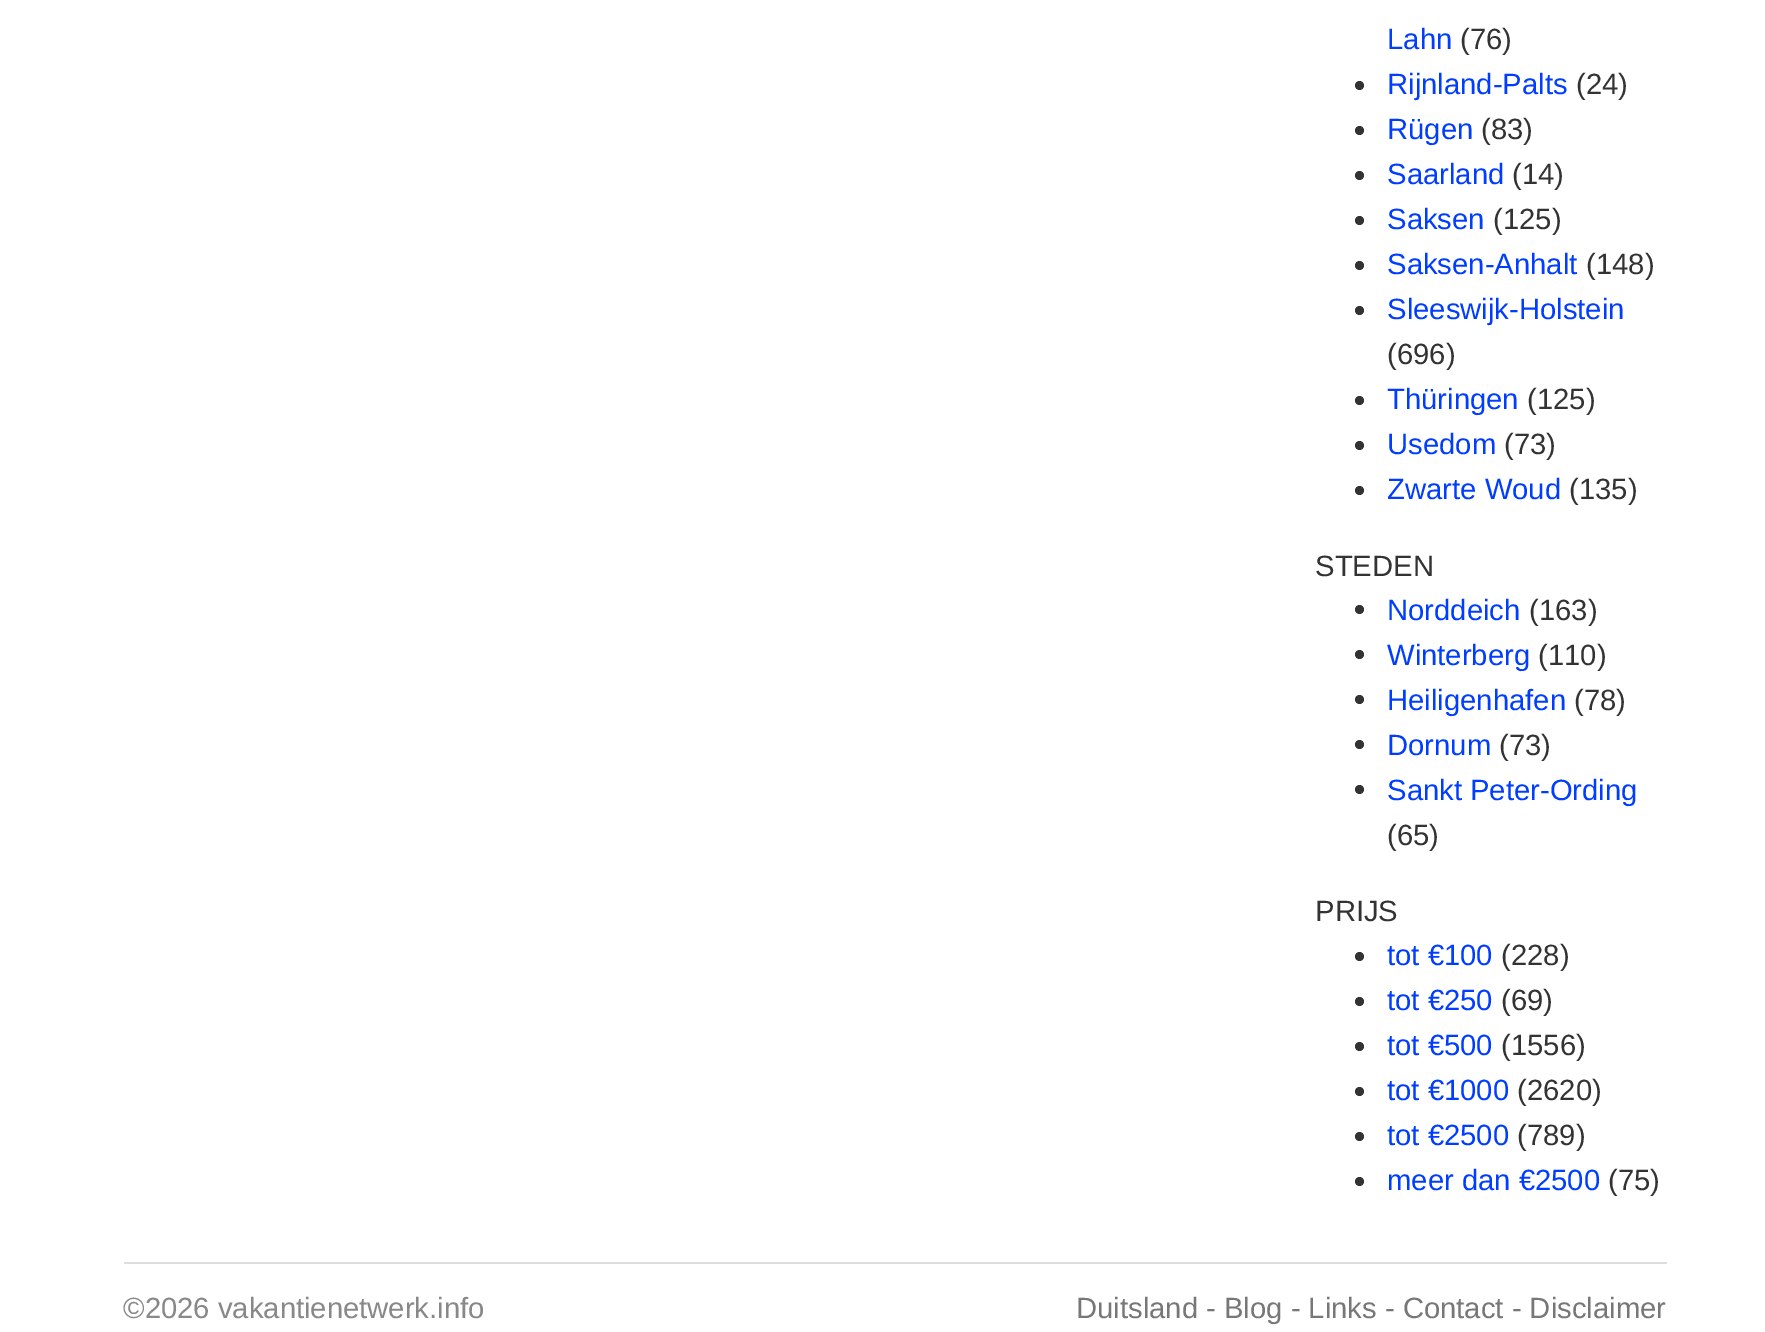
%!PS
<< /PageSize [1765 1332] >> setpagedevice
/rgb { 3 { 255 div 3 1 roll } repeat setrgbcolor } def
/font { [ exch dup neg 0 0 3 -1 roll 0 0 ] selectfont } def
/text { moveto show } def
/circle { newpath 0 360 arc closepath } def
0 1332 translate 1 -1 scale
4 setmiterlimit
255 255 255 rgb
0 0 1765 1332 rectfill
51 51 51 rgb
1359.5 85.5 4.5 circle fill
1359.5 130.5 4.5 circle fill
1359.5 175.5 4.5 circle fill
1359.5 220.5 4.5 circle fill
1359.5 265.5 4.5 circle fill
1359.5 310.5 4.5 circle fill
1359.5 400.5 4.5 circle fill
1359.5 445.5 4.5 circle fill
1359.5 490.5 4.5 circle fill
1359.5 609.5 4.5 circle fill
1359.5 654.5 4.5 circle fill
1359.5 699.5 4.5 circle fill
1359.5 744.5 4.5 circle fill
1359.5 789.5 4.5 circle fill
1359.5 956.5 4.5 circle fill
1359.5 1001.5 4.5 circle fill
1359.5 1046.5 4.5 circle fill
1359.5 1091.5 4.5 circle fill
1359.5 1136.5 4.5 circle fill
1359.5 1181.5 4.5 circle fill
221 221 221 rgb
124 1262 1543 2 rectfill
/LiberationSans-Regular 29.25 font
0 61 255 rgb
(Lahn) 1387 49 text
51 51 51 rgb
(\(76\)) 1460 49 text
0 61 255 rgb
(Rijnland-Palts) 1387 94 text
51 51 51 rgb
(\(24\)) 1576 94 text
0 61 255 rgb
(Rügen) 1387 139 text
51 51 51 rgb
(\(83\)) 1481 139 text
0 61 255 rgb
(Saarland) 1387 184 text
51 51 51 rgb
(\(14\)) 1512 184 text
0 61 255 rgb
(Saksen) 1387 229 text
51 51 51 rgb
(\(125\)) 1493 229 text
0 61 255 rgb
(Saksen-Anhalt) 1387 274 text
51 51 51 rgb
(\(148\)) 1586 274 text
0 61 255 rgb
(Sleeswijk-Holstein) 1387 319 text
51 51 51 rgb
(\(696\)) 1387 364 text
0 61 255 rgb
(Thüringen) 1387 409 text
51 51 51 rgb
(\(125\)) 1527 409 text
0 61 255 rgb
(Usedom) 1387 454 text
51 51 51 rgb
(\(73\)) 1504 454 text
0 61 255 rgb
(Zwarte Woud) 1387 499 text
51 51 51 rgb
(\(135\)) 1569 499 text
(STEDEN) 1315 576 text
0 61 255 rgb
(Norddeich) 1387 620 text
51 51 51 rgb
(\(163\)) 1529 620 text
0 61 255 rgb
(Winterberg) 1387 665 text
51 51 51 rgb
(\(110\)) 1538 665 text
0 61 255 rgb
(Heiligenhafen) 1387 710 text
51 51 51 rgb
(\(78\)) 1574 710 text
0 61 255 rgb
(Dornum) 1387 755 text
51 51 51 rgb
(\(73\)) 1499 755 text
0 61 255 rgb
(Sankt Peter-Ording) 1387 800 text
51 51 51 rgb
(\(65\)) 1387 845 text
(PRIJS) 1315 921 text
0 61 255 rgb
(tot €100) 1387 965 text
51 51 51 rgb
(\(228\)) 1501 965 text
0 61 255 rgb
(tot €250) 1387 1010 text
51 51 51 rgb
(\(69\)) 1501 1010 text
0 61 255 rgb
(tot €500) 1387 1055 text
51 51 51 rgb
(\(1556\)) 1501 1055 text
0 61 255 rgb
(tot €1000) 1387 1100 text
51 51 51 rgb
(\(2620\)) 1517 1100 text
0 61 255 rgb
(tot €2500) 1387 1145 text
51 51 51 rgb
(\(789\)) 1517 1145 text
0 61 255 rgb
(meer dan €2500) 1387 1190 text
51 51 51 rgb
(\(75\)) 1608 1190 text
136 136 136 rgb
(©2026 vakantienetwerk.info) 123 1318 text
119 119 119 rgb
(Duitsland - Blog - Links - Contact - Disclaimer) 1076 1318 text
showpage
